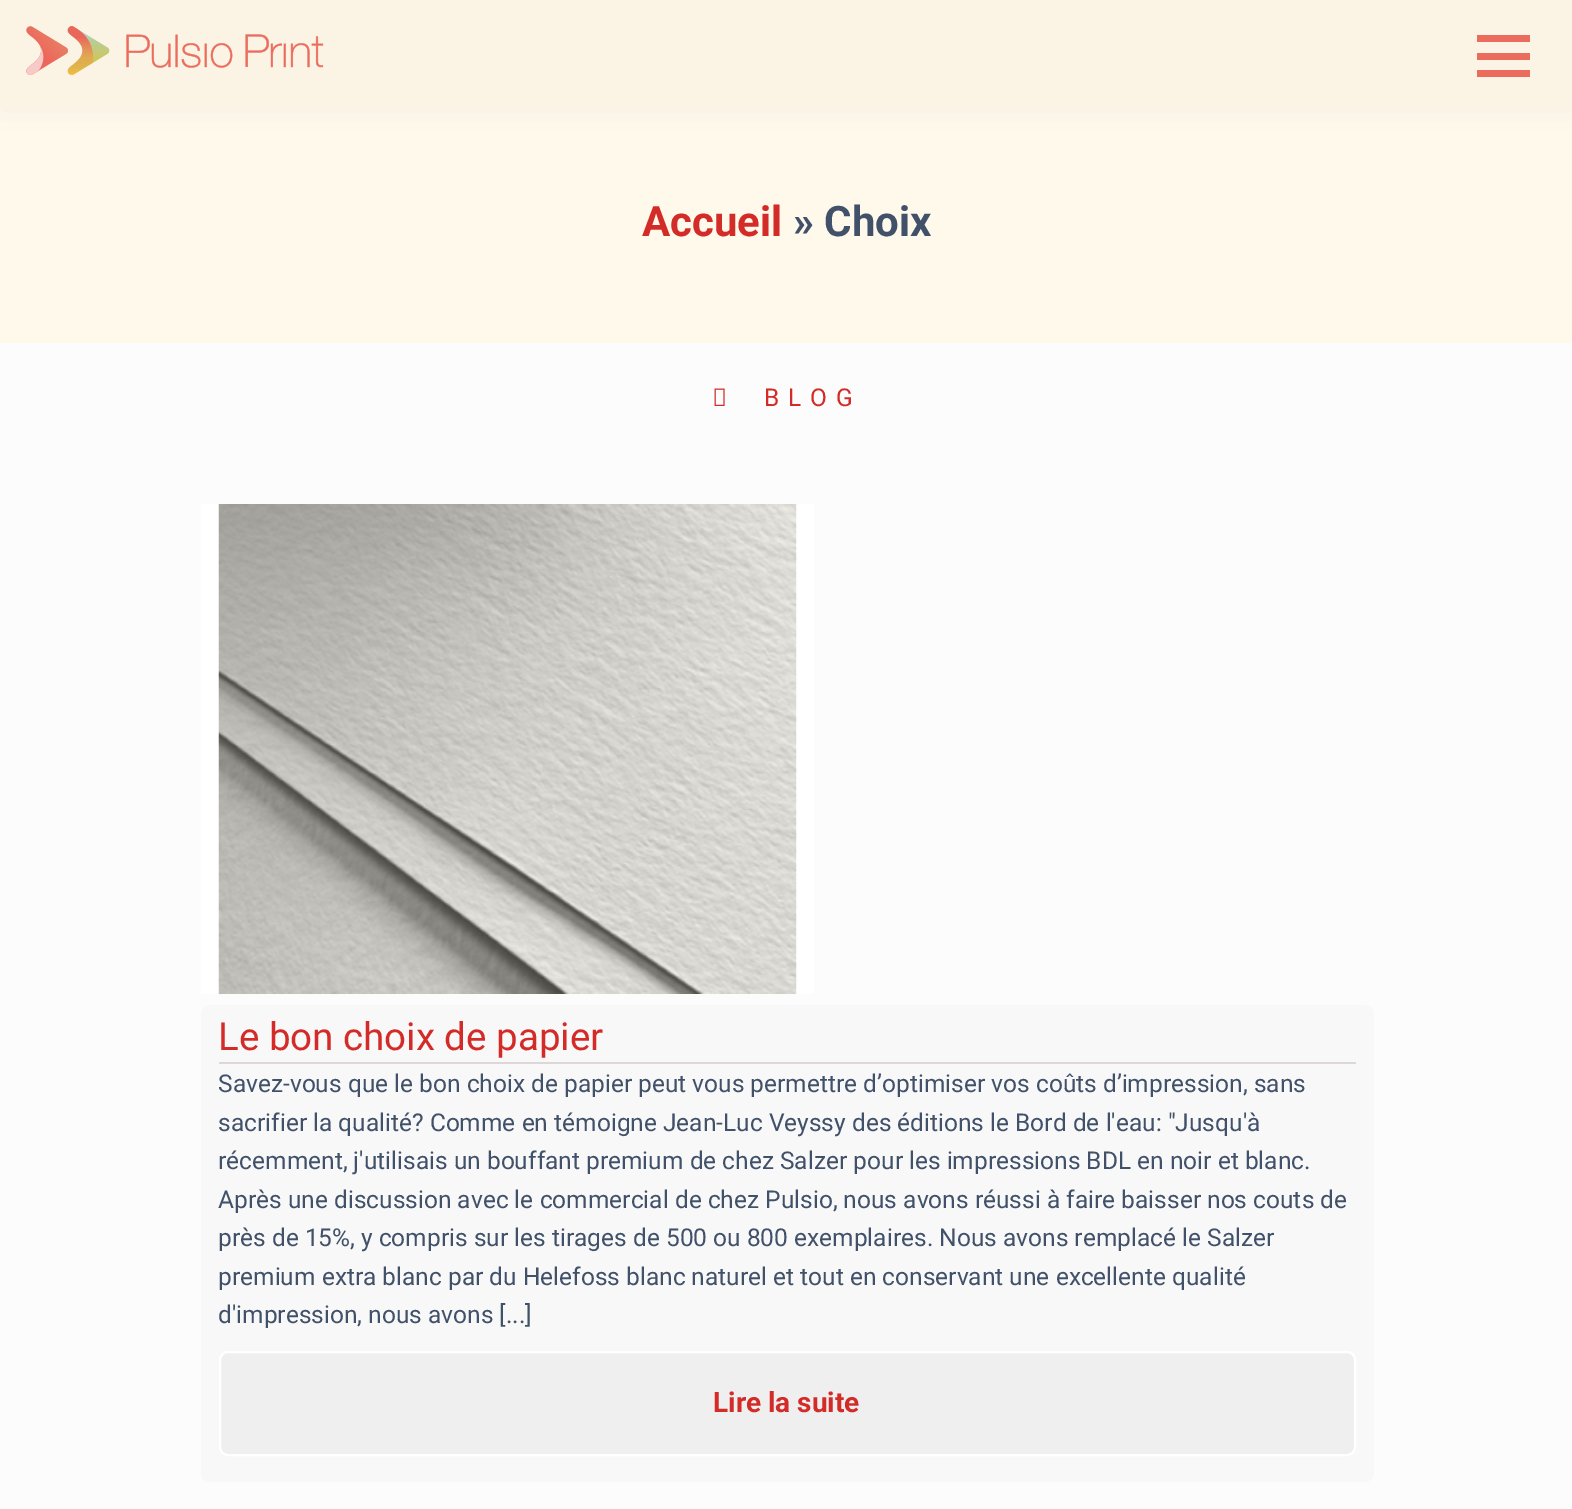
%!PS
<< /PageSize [1572 1509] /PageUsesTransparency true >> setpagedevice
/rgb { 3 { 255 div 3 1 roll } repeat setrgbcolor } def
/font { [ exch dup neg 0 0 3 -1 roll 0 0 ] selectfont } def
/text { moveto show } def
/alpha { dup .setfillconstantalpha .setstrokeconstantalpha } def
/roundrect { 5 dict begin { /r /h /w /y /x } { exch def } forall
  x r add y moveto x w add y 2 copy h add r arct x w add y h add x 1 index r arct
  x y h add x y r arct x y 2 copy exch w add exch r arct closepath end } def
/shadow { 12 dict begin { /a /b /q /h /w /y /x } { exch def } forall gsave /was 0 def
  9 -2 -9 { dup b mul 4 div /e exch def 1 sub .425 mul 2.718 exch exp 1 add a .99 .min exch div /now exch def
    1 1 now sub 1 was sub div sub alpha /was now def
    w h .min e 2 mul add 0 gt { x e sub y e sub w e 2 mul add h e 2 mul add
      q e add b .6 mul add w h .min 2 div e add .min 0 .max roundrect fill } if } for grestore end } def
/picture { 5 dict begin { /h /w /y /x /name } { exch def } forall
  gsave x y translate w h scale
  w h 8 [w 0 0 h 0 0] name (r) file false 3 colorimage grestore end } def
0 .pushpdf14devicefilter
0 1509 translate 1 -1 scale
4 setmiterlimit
252 252 252 rgb
0 0 1572 1509 rectfill
255 249 236 rgb
0 109 1572 234 rectfill
143 143 143 rgb
0 0 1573 109 0 17.5 0.1 shadow
251 244 228 rgb
0 0 1572 109 rectfill
(img_01.rgb) 26 26 298 49 picture
235 108 93 rgb
1477 53 53 7 rectfill
1477 35 53 7 rectfill
1477 70 53 7 rectfill
(img_02.rgb) 714 388 11 18 picture
255 255 255 rgb
201 504 613 490 rectfill
(img_03.rgb) 218 504 579 490 picture
248 248 248 rgb
201 1005 1173 477 9 roundrect fill
221 215 215 rgb
219 1062 1137 2 rectfill
239 239 239 rgb
220 1352 1135 103 8 roundrect gsave fill grestore
255 255 255 rgb
2 setlinewidth
stroke
/Roboto-Bold 42 font
211 43 39 rgb
(Accueil) 642 236 text
65 81 106 rgb
(» Choix) 793 236 text
/Roboto-Regular 24.5 font
211 43 39 rgb
764 406 moveto 9 0 (BLOG) ashow
/Roboto-Regular 38.5 font
(Le bon choix de papier) 218 1050 text
/Roboto-Regular 24.5 font
65 81 106 rgb
(Savez-vous que le bon choix de papier peut vous permettre d’optimiser vos coûts d’impression, sans) 218 1092 text
(sacrifier la qualité? Comme en témoigne Jean-Luc Veyssy des éditions le Bord de l'eau: "Jusqu'à) 218 1131 text
(récemment, j'utilisais un bouffant premium de chez Salzer pour les impressions BDL en noir et blanc.) 218 1169 text
(Après une discussion avec le commercial de chez Pulsio, nous avons réussi à faire baisser nos couts de) 218 1208 text
(près de 15%, y compris sur les tirages de 500 ou 800 exemplaires. Nous avons remplacé le Salzer) 218 1246 text
(premium extra blanc par du Helefoss blanc naturel et tout en conservant une excellente qualité) 218 1285 text
(d'impression, nous avons [...]) 218 1323 text
/Roboto-Bold 28 font
211 43 39 rgb
(Lire la suite) 713 1412 text
.poppdf14devicefilter showpage
